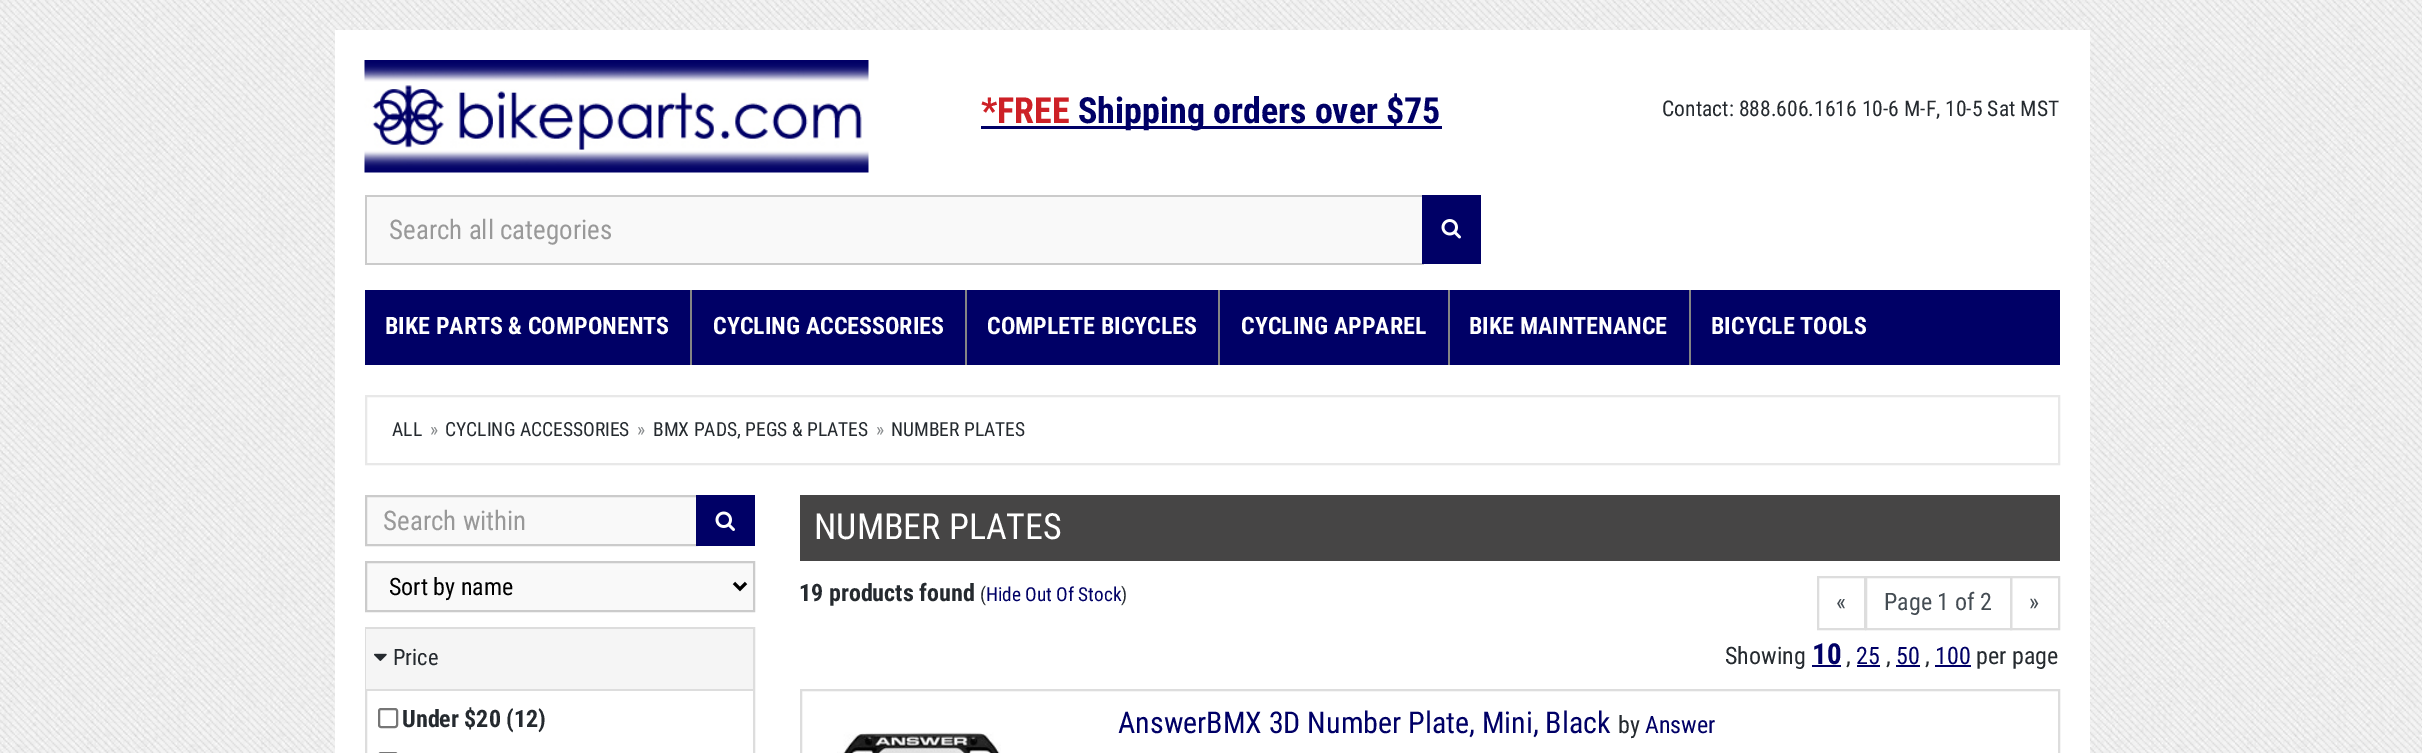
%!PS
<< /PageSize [2422 753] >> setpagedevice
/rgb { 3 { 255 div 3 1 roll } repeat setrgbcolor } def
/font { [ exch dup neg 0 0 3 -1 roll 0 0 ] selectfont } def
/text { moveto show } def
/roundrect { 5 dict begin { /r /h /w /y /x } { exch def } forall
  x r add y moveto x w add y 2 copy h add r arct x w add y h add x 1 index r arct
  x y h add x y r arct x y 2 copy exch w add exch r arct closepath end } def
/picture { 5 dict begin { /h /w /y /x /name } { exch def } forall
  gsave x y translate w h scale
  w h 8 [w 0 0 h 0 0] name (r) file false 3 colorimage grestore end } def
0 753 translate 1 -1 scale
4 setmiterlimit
255 255 255 rgb
0 0 2422 753 rectfill
(img_01.rgb) 0 0 2422 753 picture
335 30 1755 723 rectfill
(img_02.rgb) 364 60 505 113 picture
0 0 102 rgb
981 126 461 3 rectfill
249 249 249 rgb
367 197 1055 66 rectfill
203 203 203 rgb
365 195 1059 2 rectfill
365 263 1059 2 rectfill
365 195 2 69 rectfill
0 0 102 rgb
1422 195 59 69 rectfill
(img_03.rgb) 1441 219 20 20 picture
365 290 1695 75 rectfill
132 132 132 rgb
690 290 2 75 rectfill
965 290 2 75 rectfill
1218 290 2 75 rectfill
1448 290 2 75 rectfill
1689 290 2 75 rectfill
232 232 232 rgb
2 setlinewidth
366 396 1693 68 rectstroke
249 249 249 rgb
366 496 moveto 331 0 rlineto 0 49 rlineto -331 0 rlineto closepath gsave fill grestore
203 203 203 rgb
stroke
0 0 102 rgb
696 495 59 51 rectfill
(img_04.rgb) 715 511 20 20 picture
249 249 249 rgb
366 562 moveto 388 0 rlineto 0 49 rlineto -388 0 rlineto closepath gsave fill grestore
203 203 203 rgb
stroke
0 0 0 rgb
3 setlinewidth
734 583 moveto 6 6 rlineto 6 -6 rlineto stroke
221 221 221 rgb
2 setlinewidth
366 628 388 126 rectstroke
245 245 245 rgb
366 629 387 60 rectfill
(img_05.rgb) 374 653 13 8 picture
221 221 221 rgb
366 689 387 2 rectfill
118 118 118 rgb
379 709 18 18 2 roundrect stroke
379 753 18 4 2 roundrect stroke
70 69 69 rgb
800 495 1260 66 rectfill
221 221 221 rgb
1818 577 47 52 rectstroke
1866 577 145 52 rectstroke
2011 577 48 52 rectstroke
0 0 102 rgb
1812 665 29 2 rectfill
1857 665 23 2 rectfill
1896 665 24 2 rectfill
1935 665 36 2 rectfill
221 221 221 rgb
801 690 1258 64 rectstroke
(img_06.rgb) 837 732 164 21 picture
(img_07.rgb) 2421 735 1 2 picture
/RobotoCondensed-Bold 36 font
205 32 38 rgb
(*FREE) 981 123 text
0 0 102 rgb
(Shipping orders over $75) 1078 123 text
/RobotoCondensed-Regular 21.6 font
37 42 47 rgb
(Contact: 888.606.1616 10-6 M-F, 10-5 Sat MST) 1662 116 text
/RobotoCondensed-Regular 27 font
153 153 153 rgb
(Search all categories) 389 239 text
/RobotoCondensed-Bold 24 font
255 255 255 rgb
(BIKE PARTS & COMPONENTS) 385 334 text
(CYCLING ACCESSORIES) 713 334 text
(COMPLETE BICYCLES) 987 334 text
(CYCLING APPAREL) 1241 334 text
(BIKE MAINTENANCE) 1469 334 text
(BICYCLE TOOLS) 1711 334 text
/RobotoCondensed-Regular 19.5 font
37 42 47 rgb
(ALL) 392 436 text
135 138 140 rgb
(») 430 436 text
37 42 47 rgb
(CYCLING ACCESSORIES) 445 436 text
135 138 140 rgb
(») 637 436 text
37 42 47 rgb
(BMX PADS, PEGS & PLATES) 653 436 text
135 138 140 rgb
(») 876 436 text
37 42 47 rgb
(NUMBER PLATES) 891 436 text
/RobotoCondensed-Regular 27 font
153 153 153 rgb
(Search within) 383 530 text
/RobotoCondensed-Regular 24 font
0 0 0 rgb
(Sort by name) 389 595 text
/RobotoCondensed-Regular 22.5 font
37 42 47 rgb
(Price) 393 665 text
/RobotoCondensed-Bold 24 font
(Under $20 \(12\)) 402 727 text
/RobotoCondensed-Regular 36 font
255 255 255 rgb
(NUMBER PLATES) 814 539 text
/RobotoCondensed-Bold 24 font
37 42 47 rgb
(19 products found) 799 601 text
/RobotoCondensed-Regular 19.25 font
(\() 980 601 text
0 0 102 rgb
(Hide Out Of Stock) 986 601 text
37 42 47 rgb
(\)) 1121 601 text
/RobotoCondensed-Regular 24 font
68 76 83 rgb
(«) 1836 610 text
(Page 1 of 2) 1884 610 text
(») 2029 610 text
37 42 47 rgb
(Showing) 1725 664 text
/RobotoCondensed-Bold 29 font
0 0 102 rgb
(10) 1812 664 text
/RobotoCondensed-Regular 24 font
37 42 47 rgb
(,) 1846 664 text
0 0 102 rgb
(25) 1856 664 text
37 42 47 rgb
(,) 1886 664 text
0 0 102 rgb
(50) 1896 664 text
37 42 47 rgb
(,) 1925 664 text
0 0 102 rgb
(100) 1935 664 text
37 42 47 rgb
(per page) 1976 664 text
/RobotoCondensed-Regular 30 font
0 0 102 rgb
(AnswerBMX 3D Number Plate, Mini, Black) 1118 733 text
/RobotoCondensed-Regular 24 font
37 42 47 rgb
(by) 1618 733 text
0 0 102 rgb
(Answer) 1645 733 text
showpage
